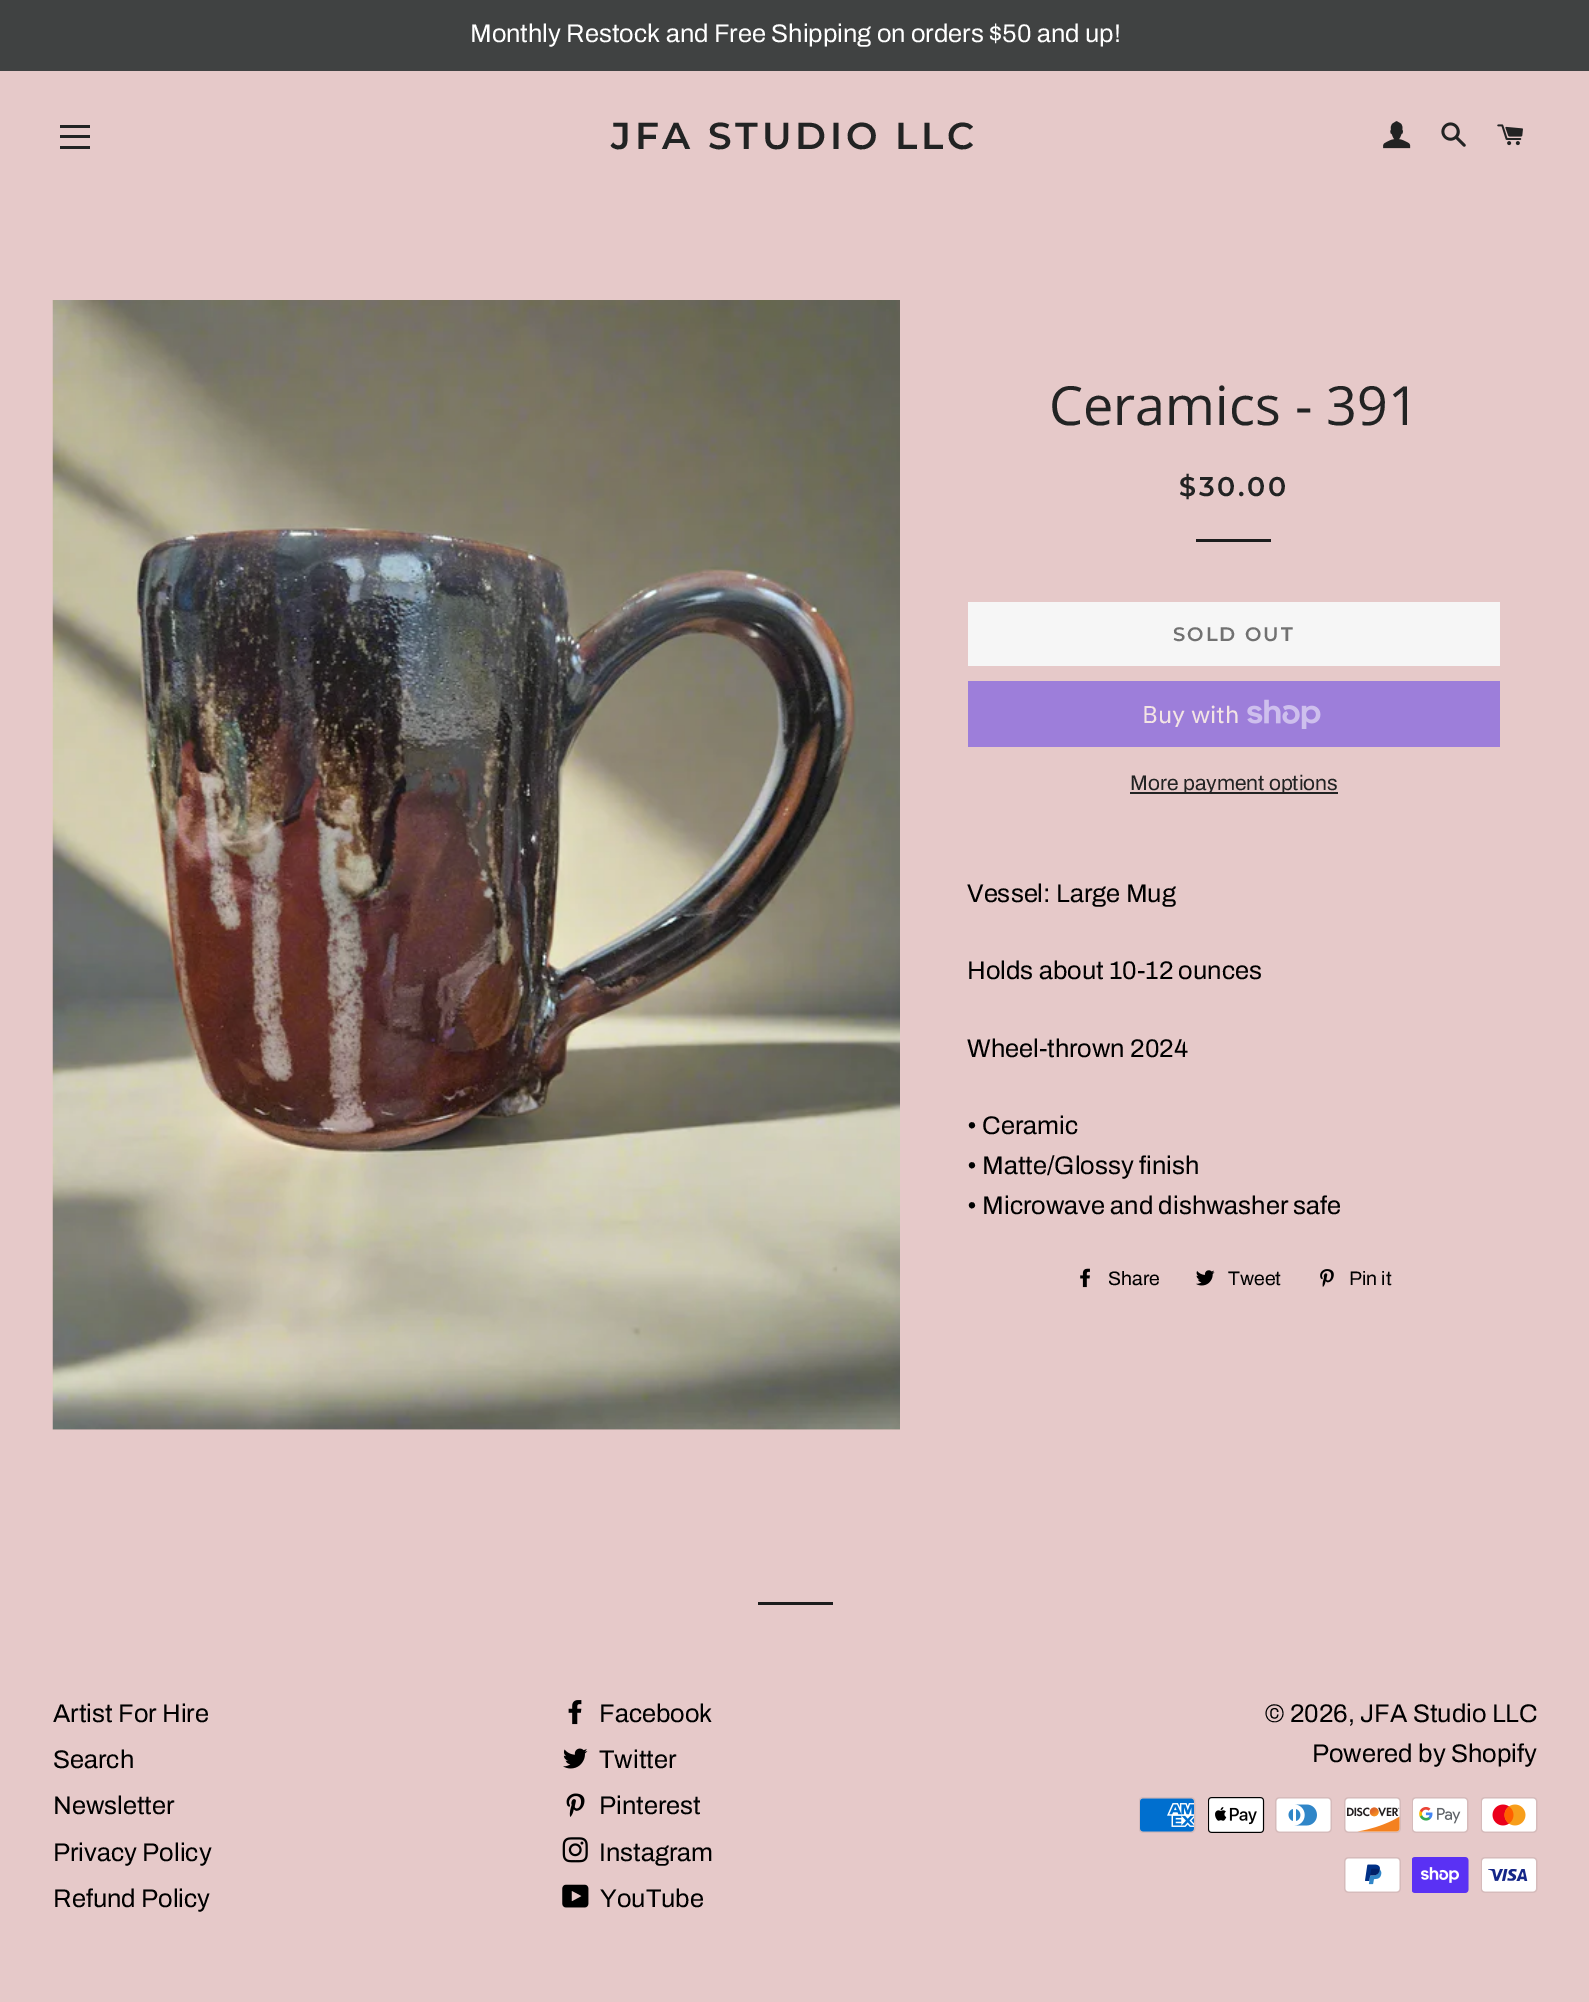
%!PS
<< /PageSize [1589 2002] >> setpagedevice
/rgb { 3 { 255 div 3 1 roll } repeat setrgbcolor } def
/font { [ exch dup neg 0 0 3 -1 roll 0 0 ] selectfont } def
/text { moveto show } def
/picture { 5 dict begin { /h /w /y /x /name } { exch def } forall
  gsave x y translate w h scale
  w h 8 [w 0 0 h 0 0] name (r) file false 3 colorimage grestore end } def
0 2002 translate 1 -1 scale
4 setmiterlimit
230 201 201 rgb
0 0 1589 2002 rectfill
64 66 66 rgb
0 0 1589 71 rectfill
34 35 35 rgb
60 125 30 3 rectfill
60 135 30 3 rectfill
60 146 30 3 rectfill
(img_01.rgb) 1383 121 28 28 picture
(img_02.rgb) 1441 122 25 25 picture
(img_03.rgb) 1497 124 26 22 picture
249 209 209 rgb
53 1429 847 1 rectfill
(img_04.rgb) 52 300 848 1130 picture
28 29 29 rgb
1196 539 75 3 rectfill
246 246 246 rgb
968 602 532 64 rectfill
157 126 218 rgb
968 681 532 66 rectfill
(img_05.rgb) 1247 699 74 30 picture
34 35 35 rgb
1130 792 208 2 rectfill
(img_06.rgb) 1080 1268 10 20 picture
(img_07.rgb) 1196 1270 19 16 picture
(img_08.rgb) 1320 1269 14 18 picture
28 29 29 rgb
758 1602 75 3 rectfill
(img_09.rgb) 568 1700 14 25 picture
(img_10.rgb) 563 1748 25 21 picture
(img_11.rgb) 566 1793 19 24 picture
(img_12.rgb) 562 1837 26 26 picture
(img_13.rgb) 562 1884 27 24 picture
(img_14.rgb) 1139 1797 57 36 picture
(img_15.rgb) 1208 1797 57 36 picture
(img_16.rgb) 1275 1797 57 36 picture
(img_17.rgb) 1344 1797 57 36 picture
(img_18.rgb) 1412 1797 57 36 picture
(img_19.rgb) 1481 1797 57 36 picture
(img_20.rgb) 1344 1857 57 36 picture
(img_21.rgb) 1412 1857 57 36 picture
(img_22.rgb) 1481 1857 57 36 picture
/Archivo-Regular 25.5 font
255 255 255 rgb
(Monthly Restock and Free Shipping on orders $50 and up!) 470 42 text
/Montserrat-SemiBold 37.5 font
34 35 35 rgb
611 149 moveto 3.75 0 (JFA STUDIO LLC) ashow
/OpenSans-Regular 54 font
(Ceramics - 391) 1049 425 text
/Montserrat-SemiBold 27 font
1179 496 moveto 2.75 0 ($30.00) ashow
/Montserrat-SemiBold 19.5 font
113 113 113 rgb
1173 641 moveto 2 0 (SOLD OUT) ashow
/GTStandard-Regular 24 font
243 228 228 rgb
(Buy with) 1142 723 text
/Archivo-Regular 21 font
34 35 35 rgb
(More payment options) 1130 790 text
/Archivo-Regular 25.5 font
0 0 0 rgb
(Vessel: Large Mug) 967 902 text
(Holds about 10-12 ounces) 967 979 text
(Wheel-thrown 2024) 967 1057 text
(• Ceramic) 967 1134 text
(• Matte/Glossy finish) 967 1174 text
(• Microwave and dishwasher safe) 967 1214 text
/Archivo-Regular 19.5 font
(Share) 1108 1285 text
(Tweet) 1228 1285 text
(Pin it) 1349 1285 text
/Archivo-Regular 25.5 font
(Artist For Hire) 53 1722 text
(Search) 53 1768 text
(Newsletter) 53 1814 text
(Privacy Policy) 53 1861 text
(Refund Policy) 53 1907 text
(Facebook) 599 1722 text
(Twitter) 599 1768 text
(Pinterest) 599 1814 text
(Instagram) 599 1861 text
(YouTube) 600 1907 text
(© 2026, JFA Studio LLC) 1265 1722 text
(Powered by Shopify) 1312 1762 text
showpage
